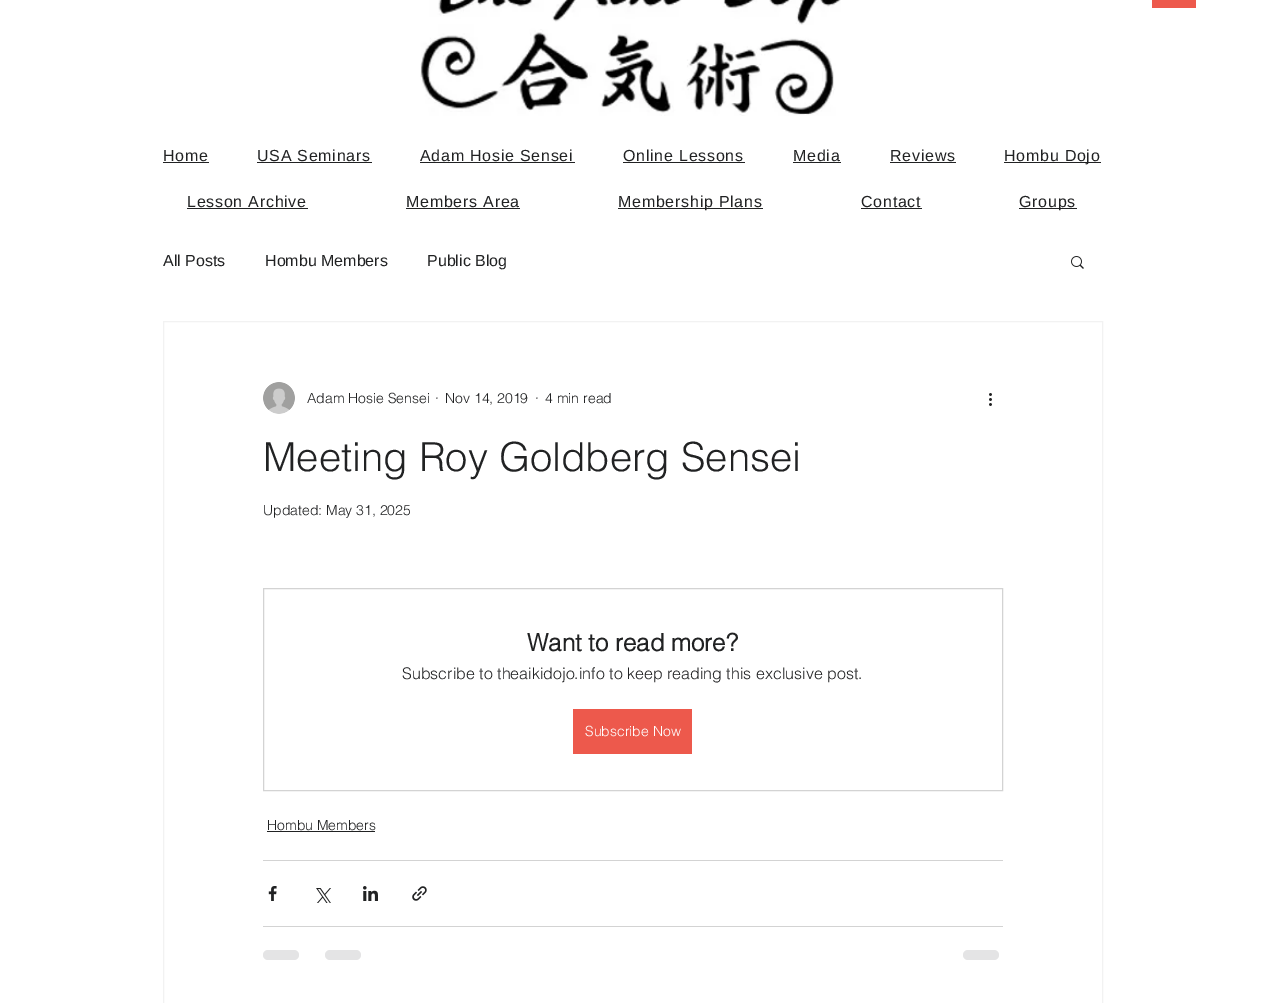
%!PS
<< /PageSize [1265 1003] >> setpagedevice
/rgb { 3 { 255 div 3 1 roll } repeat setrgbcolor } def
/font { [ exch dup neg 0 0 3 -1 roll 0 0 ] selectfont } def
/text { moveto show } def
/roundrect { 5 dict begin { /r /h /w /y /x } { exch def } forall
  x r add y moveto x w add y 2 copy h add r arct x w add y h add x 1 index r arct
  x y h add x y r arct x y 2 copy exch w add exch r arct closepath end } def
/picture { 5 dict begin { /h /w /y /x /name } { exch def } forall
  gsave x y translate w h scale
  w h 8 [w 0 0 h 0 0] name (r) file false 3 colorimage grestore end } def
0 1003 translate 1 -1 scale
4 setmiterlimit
255 255 255 rgb
0 0 1265 1003 rectfill
(img_01.rgb) 420 0 421 116 picture
237 89 76 rgb
1152 0 44 8 rectfill
33 34 35 rgb
163 162 46 1 rectfill
257 162 115 1 rectfill
420 162 155 1 rectfill
623 162 122 1 rectfill
793 162 48 1 rectfill
890 162 66 1 rectfill
1004 162 97 1 rectfill
187 208 121 1 rectfill
406 208 114 1 rectfill
618 208 145 1 rectfill
861 208 61 1 rectfill
1019 208 58 1 rectfill
(img_02.rgb) 1071 256 13 13 picture
242 242 242 rgb
163.5 321.5 939 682 rectstroke
(img_03.rgb) 263 382 32 32 picture
(img_04.rgb) 989 393 3 13 picture
211 211 211 rgb
263.5 588.5 739 202 rectstroke
237 89 76 rgb
573 709 119 45 rectfill
33 34 35 rgb
267 831 108 1 rectfill
211 211 211 rgb
263 860 740 1 rectfill
(img_05.rgb) 268 886 9 15 picture
(img_06.rgb) 316 888 15 15 picture
(img_07.rgb) 363 886 15 15 picture
(img_08.rgb) 412 886 15 15 picture
263 926 740 1 rectfill
228 228 229 rgb
263 950 36 10 5 roundrect fill
325 950 36 10 5 roundrect fill
963 950 36 10 5 roundrect fill
/LiberationSans-Regular 16 font
33 34 35 rgb
163 161 moveto 0.75 0 (Home) ashow
257 161 moveto 0.75 0 (USA Seminars) ashow
420 161 moveto 0.75 0 (Adam Hosie Sensei) ashow
623 161 moveto 0.75 0 (Online Lessons) ashow
793 161 moveto 0.75 0 (Media) ashow
890 161 moveto 0.75 0 (Reviews) ashow
1004 161 moveto 0.75 0 (Hombu Dojo) ashow
187 207 moveto 0.75 0 (Lesson Archive) ashow
406 207 moveto 0.75 0 (Members Area) ashow
618 207 moveto 0.75 0 (Membership Plans) ashow
861 207 moveto 0.75 0 (Contact) ashow
1019 207 moveto 0.75 0 (Groups) ashow
(All Posts) 163 266 text
(Hombu Members) 265 266 text
(Public Blog) 427 266 text
/helvetica-Light 14 font
(Adam Hosie Sensei) 307 403 text
(·) 435 403 text
(Nov 14, 2019) 445 403 text
(·) 535 403 text
(4 min read) 545 403 text
/helvetica-Light 40 font
(Meeting Roy Goldberg Sensei) 263 471 text
/helvetica-Light 14 font
(Updated: May 31, 2025) 263 515 text
/helvetica-Bold 24 font
(Want to read more?) 527 651 text
/helvetica-Light 16 font
(Subscribe to theaikidojo.info to keep reading this exclusive post.) 402 679 text
/helvetica-Light 14 font
255 255 255 rgb
(Subscribe Now) 585 736 text
33 34 35 rgb
(Hombu Members) 267 830 text
showpage
